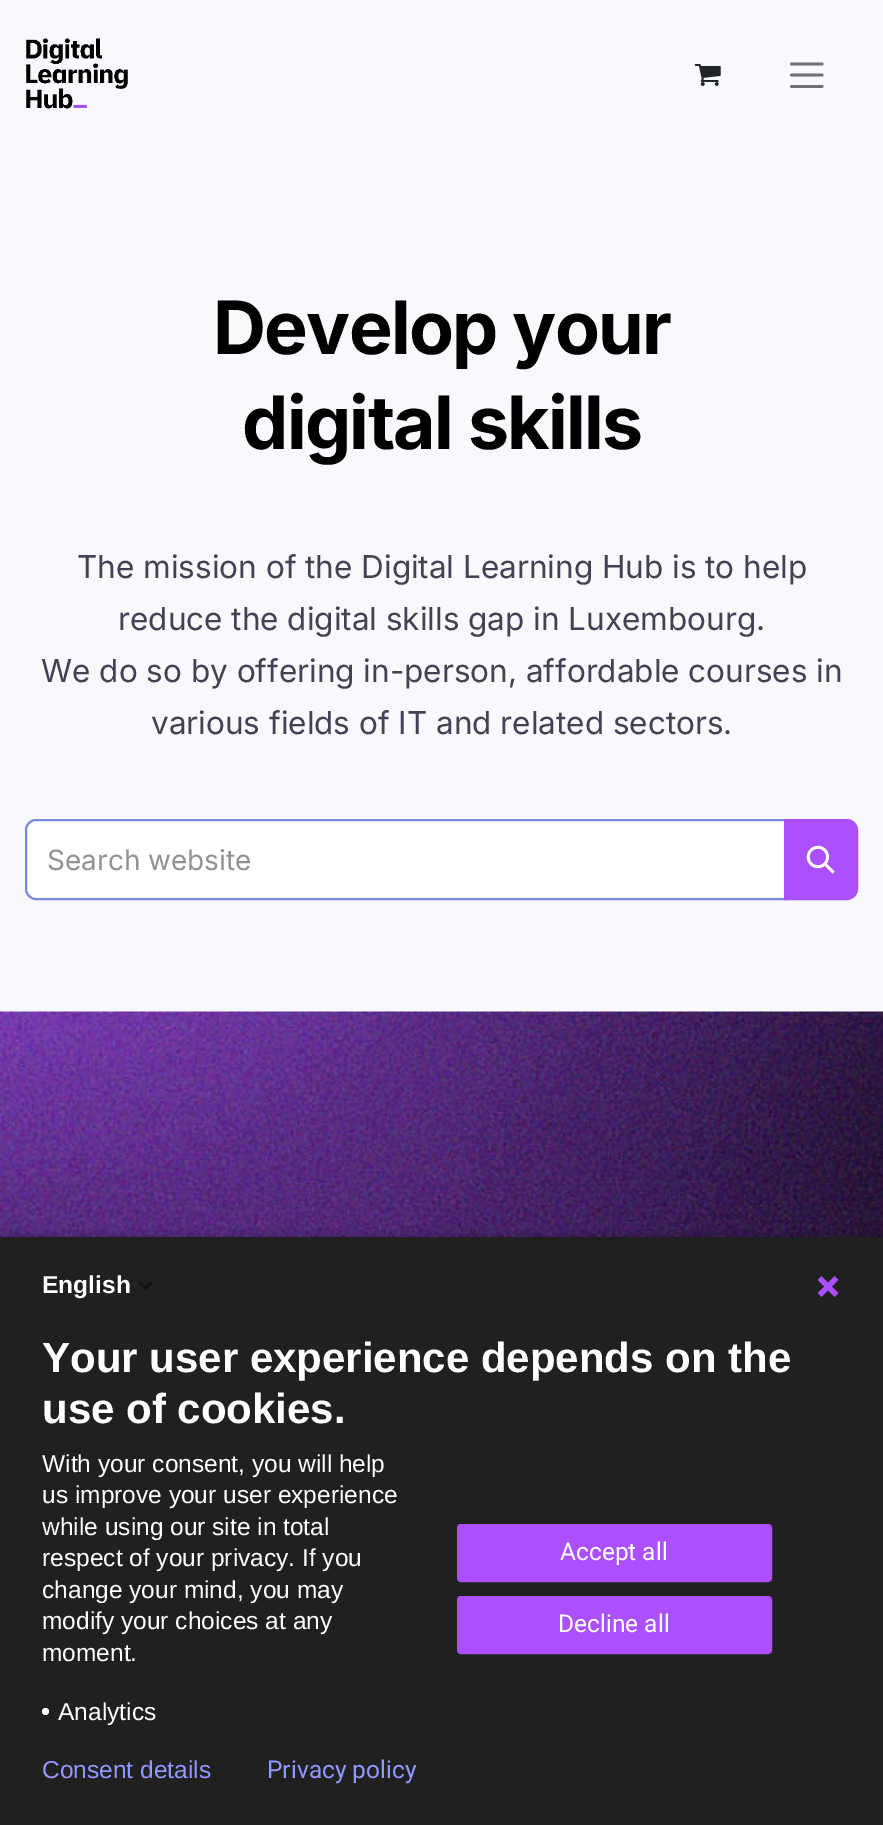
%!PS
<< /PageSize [883 1825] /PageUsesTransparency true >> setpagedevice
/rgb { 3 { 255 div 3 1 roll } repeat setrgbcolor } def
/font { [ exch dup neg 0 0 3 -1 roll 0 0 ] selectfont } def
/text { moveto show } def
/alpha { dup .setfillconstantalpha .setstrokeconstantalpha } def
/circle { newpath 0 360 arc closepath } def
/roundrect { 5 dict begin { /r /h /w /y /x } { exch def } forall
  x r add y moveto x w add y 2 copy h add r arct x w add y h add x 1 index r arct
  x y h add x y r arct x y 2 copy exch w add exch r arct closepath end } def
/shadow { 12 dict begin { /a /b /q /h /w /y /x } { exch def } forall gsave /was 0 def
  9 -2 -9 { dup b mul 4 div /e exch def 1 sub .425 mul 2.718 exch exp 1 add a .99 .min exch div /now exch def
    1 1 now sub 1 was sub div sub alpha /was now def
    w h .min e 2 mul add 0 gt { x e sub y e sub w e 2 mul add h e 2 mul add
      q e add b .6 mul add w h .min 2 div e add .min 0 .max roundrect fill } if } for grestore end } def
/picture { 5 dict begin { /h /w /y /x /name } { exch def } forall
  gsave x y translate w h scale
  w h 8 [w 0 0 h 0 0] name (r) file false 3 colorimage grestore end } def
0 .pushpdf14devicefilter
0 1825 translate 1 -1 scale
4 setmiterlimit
248 249 253 rgb
0 0 883 1825 rectfill
(img_01.rgb) 26 38 102 71 picture
(img_02.rgb) 694 64 27 22 picture
112 112 114 rgb
2.8 setlinewidth
1 setlinecap
791.5 64 moveto 30.5 0 rlineto 791.5 75 moveto 30.5 0 rlineto 791.5 86.5 moveto 30.5 0 rlineto stroke
255 255 255 rgb
36 820 moveto 749 0 rlineto 0 79 rlineto -749 0 rlineto -5.5 0 -10 -4.5 -10 -10 rcurveto 0 -59 rlineto 0 -5.5 4.5 -10 10 -10 rcurveto closepath gsave fill grestore
120 139 217 rgb
2 setlinewidth
0 setlinecap
stroke
171 79 255 rgb
785 820 moveto 62 0 rlineto 5.5 0 10 4.5 10 10 rcurveto 0 59 rlineto 0 5.5 -4.5 10 -10 10 rcurveto -62 0 rlineto closepath gsave fill grestore
stroke
(img_03.rgb) 806 845 29 29 picture
(img_04.rgb) 0 1011 883 226 picture
0 0 0 rgb
-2 1232 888 592 0 4.5 0.14 shadow
32 32 32 rgb
0 1237 883 588 rectfill
(img_05.rgb) 138 1281 15 10 picture
(img_06.rgb) 817 1276 22 21 picture
255 255 255 rgb
45.5 1711.5 3.5 circle fill
171 79 255 rgb
458 1525 313 56 3 roundrect gsave fill grestore
stroke
458 1597 313 56 3 roundrect gsave fill grestore
stroke
/Inter-Bold 73.5 font
0 0 0 rgb
213 354 moveto -1.75 0 (Develop your) ashow
242 449 moveto -1.75 0 (digital skills) ashow
/Inter-Regular 31.5 font
68 66 82 rgb
(The mission of the Digital Learning Hub is to help) 77 578 text
(reduce the digital skills gap in Luxembourg.) 118 630 text
(We do so by offering in-person, affordable courses in) 41 682 text
(various fields of IT and related sectors.) 151 734 text
/Inter-Regular 28 font
144 146 148 rgb
(Search website) 47 870 text
/LiberationSans-Bold 24.5 font
255 255 255 rgb
(English) 42 1293 text
/LiberationSans-Bold 42 font
(Your user experience depends on the) 42 1372 text
(use of cookies.) 42 1423 text
/LiberationSans-Regular 24.5 font
(With your consent, you will help) 42 1472 text
(us improve your user experience) 42 1503 text
(while using our site in total) 42 1535 text
(respect of your privacy. If you) 42 1566 text
(change your mind, you may) 42 1598 text
(modify your choices at any) 42 1629 text
(moment.) 42 1661 text
(Analytics) 58 1720 text
/Roboto-Regular 24.5 font
(Accept all) 560 1560 text
(Decline all) 558 1632 text
/LiberationSans-Regular 24.5 font
145 152 255 rgb
(Consent details) 42 1778 text
/Roboto-Regular 24.5 font
(Privacy policy) 267 1778 text
.poppdf14devicefilter showpage
